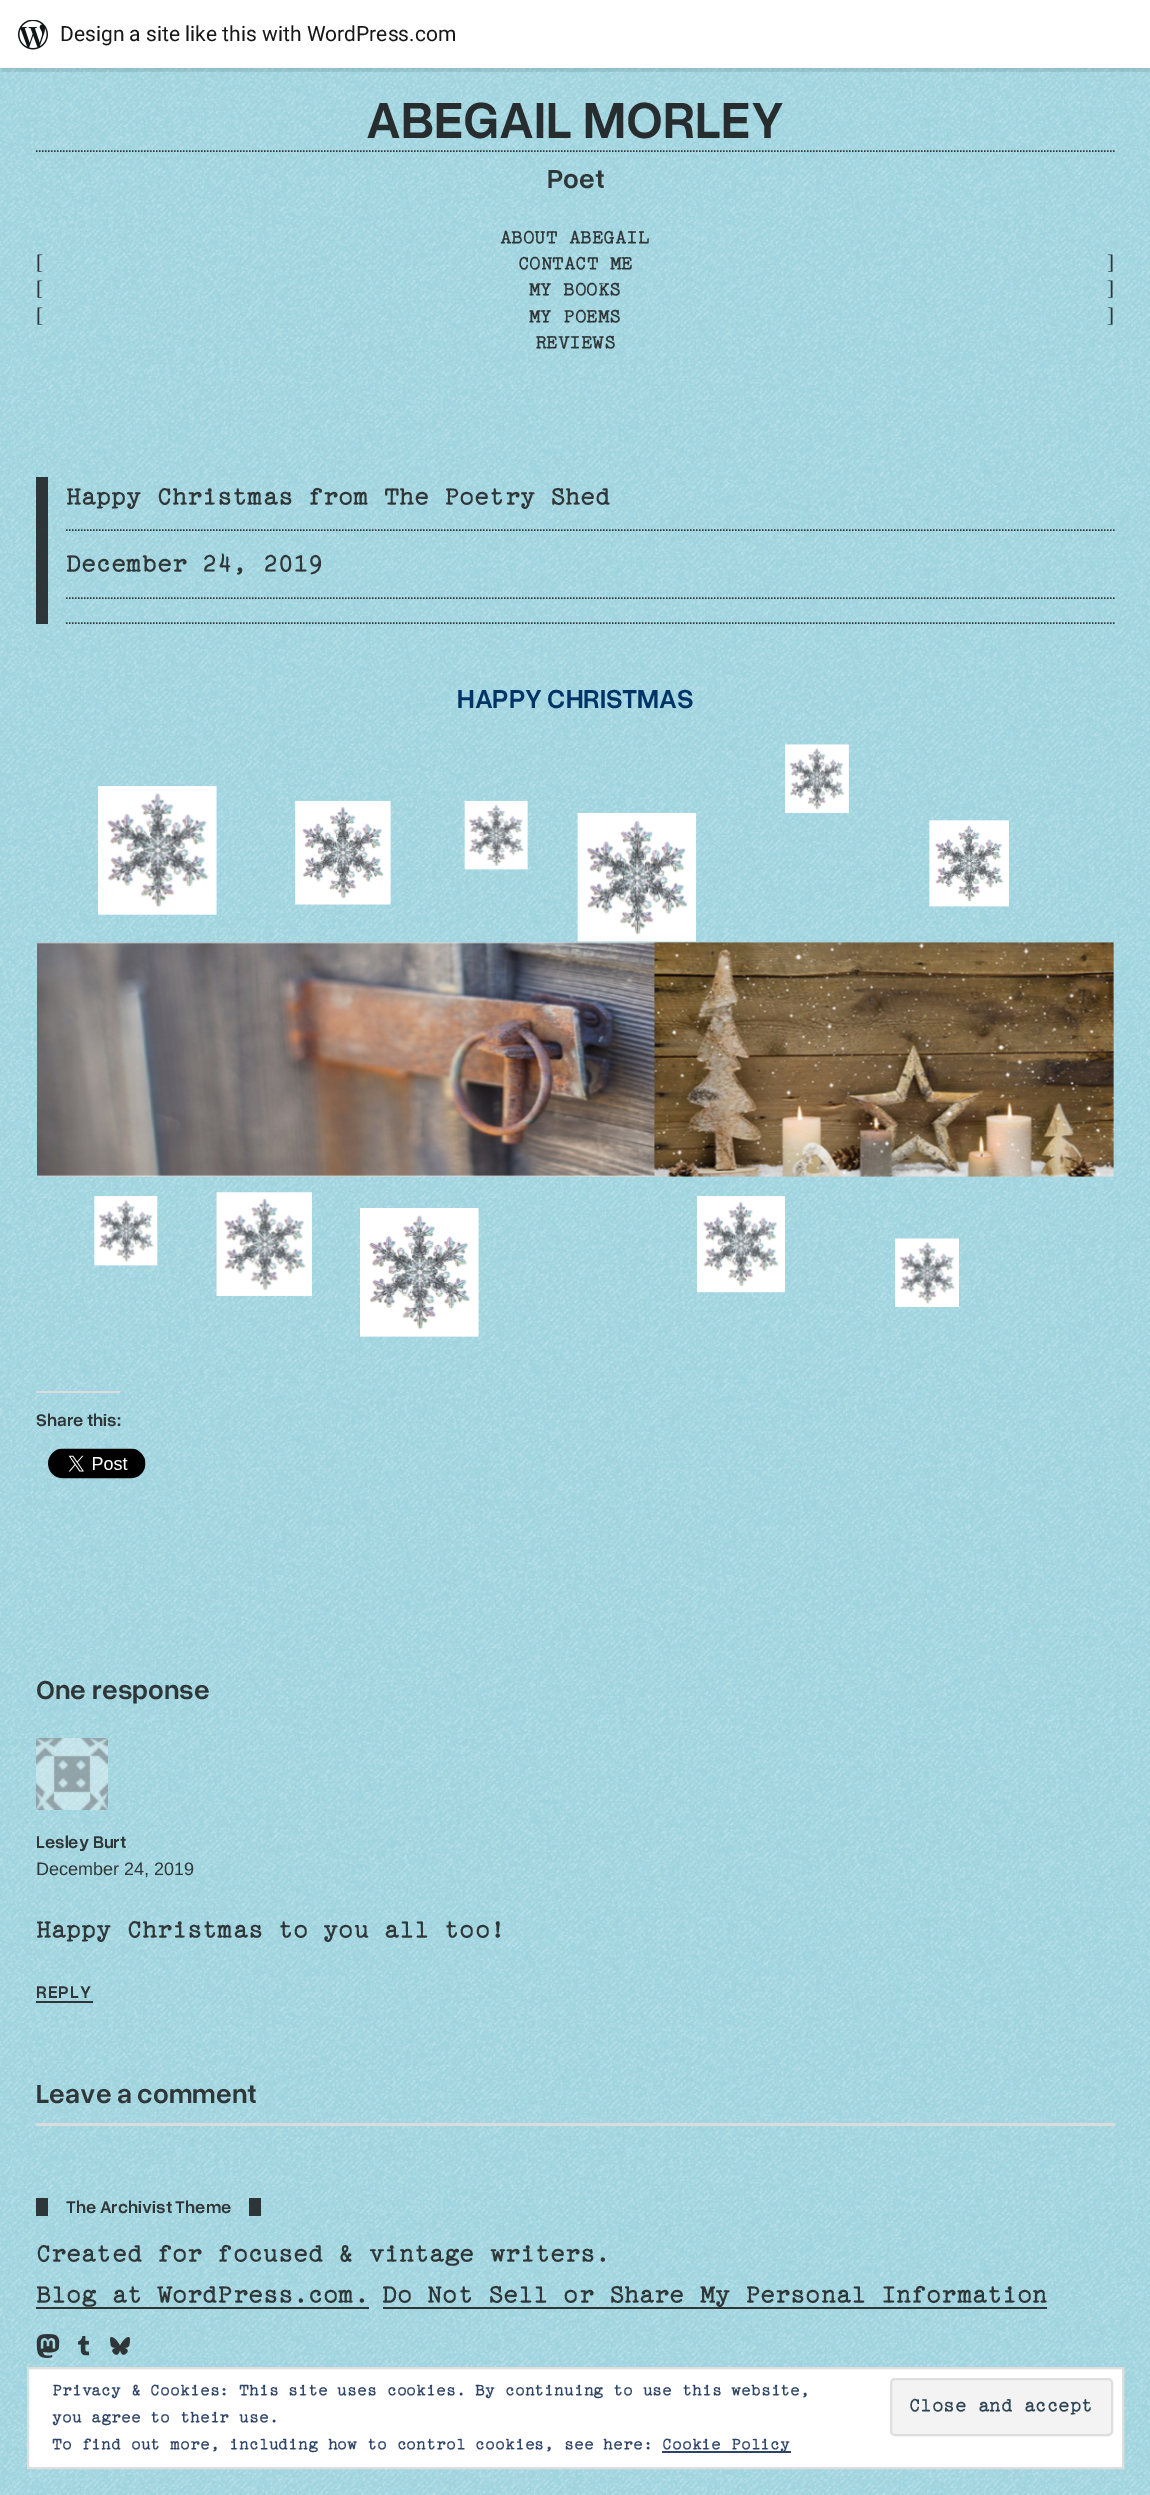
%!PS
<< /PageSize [1150 2495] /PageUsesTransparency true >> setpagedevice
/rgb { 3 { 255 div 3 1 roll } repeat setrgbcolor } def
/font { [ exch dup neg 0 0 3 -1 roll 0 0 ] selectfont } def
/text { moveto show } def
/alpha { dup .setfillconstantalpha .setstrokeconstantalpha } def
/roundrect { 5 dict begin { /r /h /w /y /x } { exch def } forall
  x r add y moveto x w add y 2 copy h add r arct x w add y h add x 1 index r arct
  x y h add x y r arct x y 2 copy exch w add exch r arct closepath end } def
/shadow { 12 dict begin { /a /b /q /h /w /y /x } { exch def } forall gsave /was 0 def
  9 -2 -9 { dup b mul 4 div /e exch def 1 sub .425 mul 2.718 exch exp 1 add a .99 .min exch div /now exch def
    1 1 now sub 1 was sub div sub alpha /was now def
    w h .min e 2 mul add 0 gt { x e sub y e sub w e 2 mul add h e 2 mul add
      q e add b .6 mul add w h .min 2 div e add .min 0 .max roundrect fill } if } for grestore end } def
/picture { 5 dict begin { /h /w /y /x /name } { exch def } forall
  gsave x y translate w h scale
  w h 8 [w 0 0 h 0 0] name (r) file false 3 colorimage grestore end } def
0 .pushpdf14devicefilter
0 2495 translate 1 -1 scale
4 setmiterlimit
159 212 223 rgb
0 0 1150 2495 rectfill
(img_02.rgb) 0 68 1150 2427 picture
0 0 0 rgb
0 2 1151 67 0 1.5 0.05 shadow
0.08 alpha
2 68 moveto 0 4 rlineto 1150 0 rlineto 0 -67 rlineto -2 0 rlineto 0 63 rlineto closepath fill
1 alpha
255 255 255 rgb
0 0 1150 68 rectfill
(img_01.rgb) 18 20 30 30 picture
0.85 alpha
25 25 26 rgb
1.5 setlinewidth
[1.5 1.5] 0 setdash
36 151 moveto 1078.5 0 rlineto stroke
36 477 12 147 rectfill
66 530 moveto 1048.5 0 rlineto stroke
66 598 moveto 1048.5 0 rlineto stroke
66 623 moveto 1048.5 0 rlineto stroke
1 alpha
(img_03.rgb) 37 744 1077 593 picture
220 220 222 rgb
36 1391 84 2 rectfill
(img_04.rgb) 48 1448 98 31 picture
(img_05.rgb) 36 1738 72 72 picture
0.85 alpha
25 25 26 rgb
36 2001 57 2 rectfill
1 alpha
220 220 222 rgb
36 2123 1079 3 rectfill
0.85 alpha
25 25 26 rgb
249 2198 12 18 rectfill
36 2198 12 18 rectfill
36 2307 333 2 rectfill
383 2307 664 2 rectfill
1 alpha
(img_06.rgb) 36 2334 24 24 picture
(img_07.rgb) 78 2336 12 20 picture
(img_08.rgb) 110 2337 20 18 picture
255 255 255 rgb
28 2368 moveto 1095 0 rlineto 0 100 rlineto -1095 0 rlineto closepath gsave fill grestore
222 222 222 rgb
2 setlinewidth
[] 0 setdash
stroke
243 243 243 rgb
891 2379 221 56 4 roundrect gsave fill grestore
222 222 222 rgb
stroke
46 68 103 rgb
662 2451 129 2 rectfill
/Roboto-Regular 21 font
23 23 23 rgb
(Design a site like this with WordPress.com) 60 41 text
/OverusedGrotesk-SemiBold 54 font
39 44 46 rgb
(ABEGAIL MORLEY) 366 138 text
/OverusedGrotesk-SemiBold 27.65 font
46 54 56 rgb
(Poet) 547 188 text
/LiberationSerif-Regular 21 font
([) 36 269 text
([) 36 295 text
([) 36 322 text
/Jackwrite-Regular 21 font
(ABOUT ABEGAIL) 500 243 text
(CONTACT ME) 518 269 text
(MY BOOKS) 529 295 text
(MY POEMS) 529 322 text
(REVIEWS) 535 348 text
/LiberationSerif-Regular 21 font
(]) 1107 269 text
(]) 1107 295 text
(]) 1107 322 text
/Jackwrite-Regular 27.65 font
(Happy Christmas from The Poetry Shed) 66 504 text
(December 24, 2019) 66 571 text
/OverusedGrotesk-SemiBold 27.65 font
0 51 102 rgb
(HAPPY CHRISTMAS) 457 708 text
/OverusedGrotesk-SemiBold 18 font
46 54 56 rgb
(Share this:) 36 1426 text
/OverusedGrotesk-SemiBold 27.65 font
(One response) 36 1699 text
/OverusedGrotesk-SemiBold 18 font
(Lesley Burt) 36 1848 text
/LiberationSans-Regular 18 font
(December 24, 2019) 36 1875 text
/Jackwrite-Regular 27.65 font
(Happy Christmas to you all too!) 36 1937 text
/OverusedGrotesk-SemiBold 18 font
36 1998 moveto 1 0 (REPLY) ashow
/OverusedGrotesk-SemiBold 27.65 font
(Leave a comment) 36 2103 text
/OverusedGrotesk-SemiBold 18 font
(The Archivist Theme) 66 2213 text
/Jackwrite-Regular 27.65 font
(Created for focused & vintage writers.) 36 2261 text
(Blog at WordPress.com.) 36 2302 text
(Do Not Sell or Share My Personal Information) 382 2302 text
/Jackwrite-Regular 18 font
46 68 103 rgb
(Privacy & Cookies: This site uses cookies. By continuing to use this website,) 52 2395 text
/Jackwrite-Regular 21 font
46 68 83 rgb
(Close and accept) 909 2411 text
/Jackwrite-Regular 18 font
46 68 103 rgb
(you agree to their use.) 52 2422 text
(To find out more, including how to control cookies, see here:) 52 2449 text
(Cookie Policy) 662 2449 text
.poppdf14devicefilter showpage
